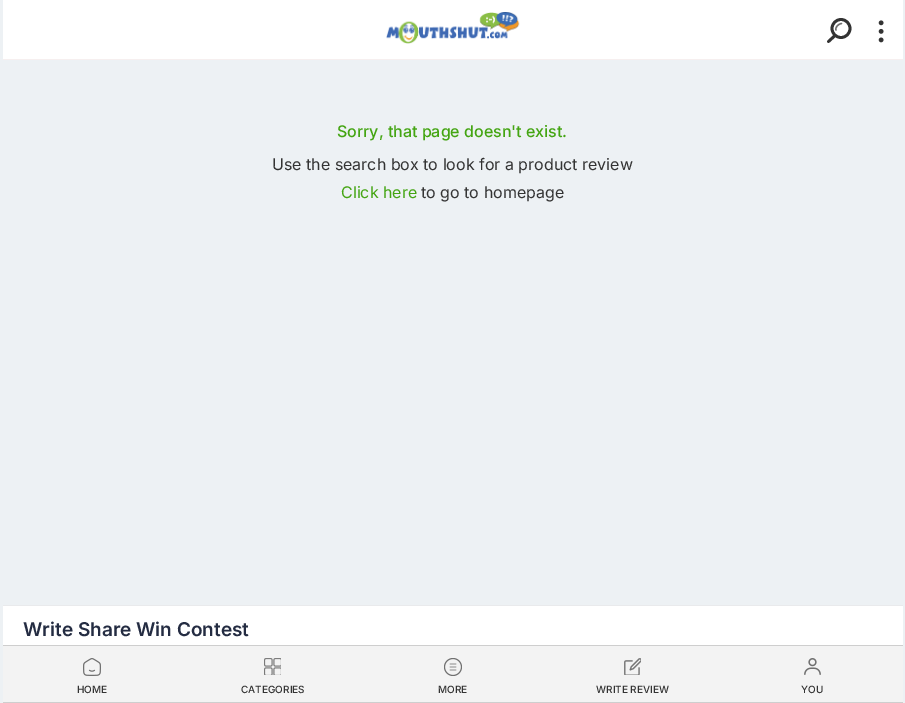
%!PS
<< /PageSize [905 703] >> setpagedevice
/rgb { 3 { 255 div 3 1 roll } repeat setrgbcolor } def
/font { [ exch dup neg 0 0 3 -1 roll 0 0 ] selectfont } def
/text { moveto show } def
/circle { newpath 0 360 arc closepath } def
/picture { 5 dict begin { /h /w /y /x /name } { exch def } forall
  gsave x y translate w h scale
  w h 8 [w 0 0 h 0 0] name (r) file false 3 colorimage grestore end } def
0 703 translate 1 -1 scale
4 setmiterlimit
237 241 244 rgb
0 0 905 703 rectfill
255 255 255 rgb
3 0 900 59 rectfill
246 239 239 rgb
3 59 900 1 rectfill
(img_01.rgb) 386 12 134 32 picture
51 51 51 rgb
2.8 setlinewidth
841 28.5 9 circle stroke
(img_02.rgb) 878 20 6 23 picture
112 112 112 rgb
1.4 setlinewidth
1 setlinecap
841.5 23.5 moveto -3 0.5 -6.5 3.5 -5.5 6.5 rcurveto stroke
51 51 51 rgb
2.8 setlinewidth
1 setlinejoin
828.5 41.5 moveto 6.5 -6 rlineto stroke
255 255 255 rgb
3 606 900 39 rectfill
233 234 236 rgb
3 605 900 1 rectfill
243 243 243 rgb
3 646 900 56 rectfill
206 206 206 rgb
3 645 900 1 rectfill
3 702 900 1 rectfill
(img_03.rgb) 83 658 18 18 picture
(img_04.rgb) 264 658 17 17 picture
(img_05.rgb) 444 658 18 18 picture
(img_06.rgb) 624 658 17 17 picture
(img_07.rgb) 804 658 17 17 picture
/Inter-Medium 16 font
68 165 18 rgb
(Sorry, that page doesn't exist.) 337 137 text
/Inter-Regular 16 font
51 51 51 rgb
(Use the search box to look for a product review) 272 170 text
68 165 18 rgb
(Click here) 341 198 text
51 51 51 rgb
(to go to homepage) 421 198 text
/Inter-SemiBold 19 font
36 44 66 rgb
(Write Share Win Contest) 23 636 text
/Inter-Medium 10 font
51 51 51 rgb
(HOME) 77 693 text
(CATEGORIES) 241 693 text
(MORE) 438 693 text
(WRITE REVIEW) 596 693 text
(YOU) 801 693 text
showpage
